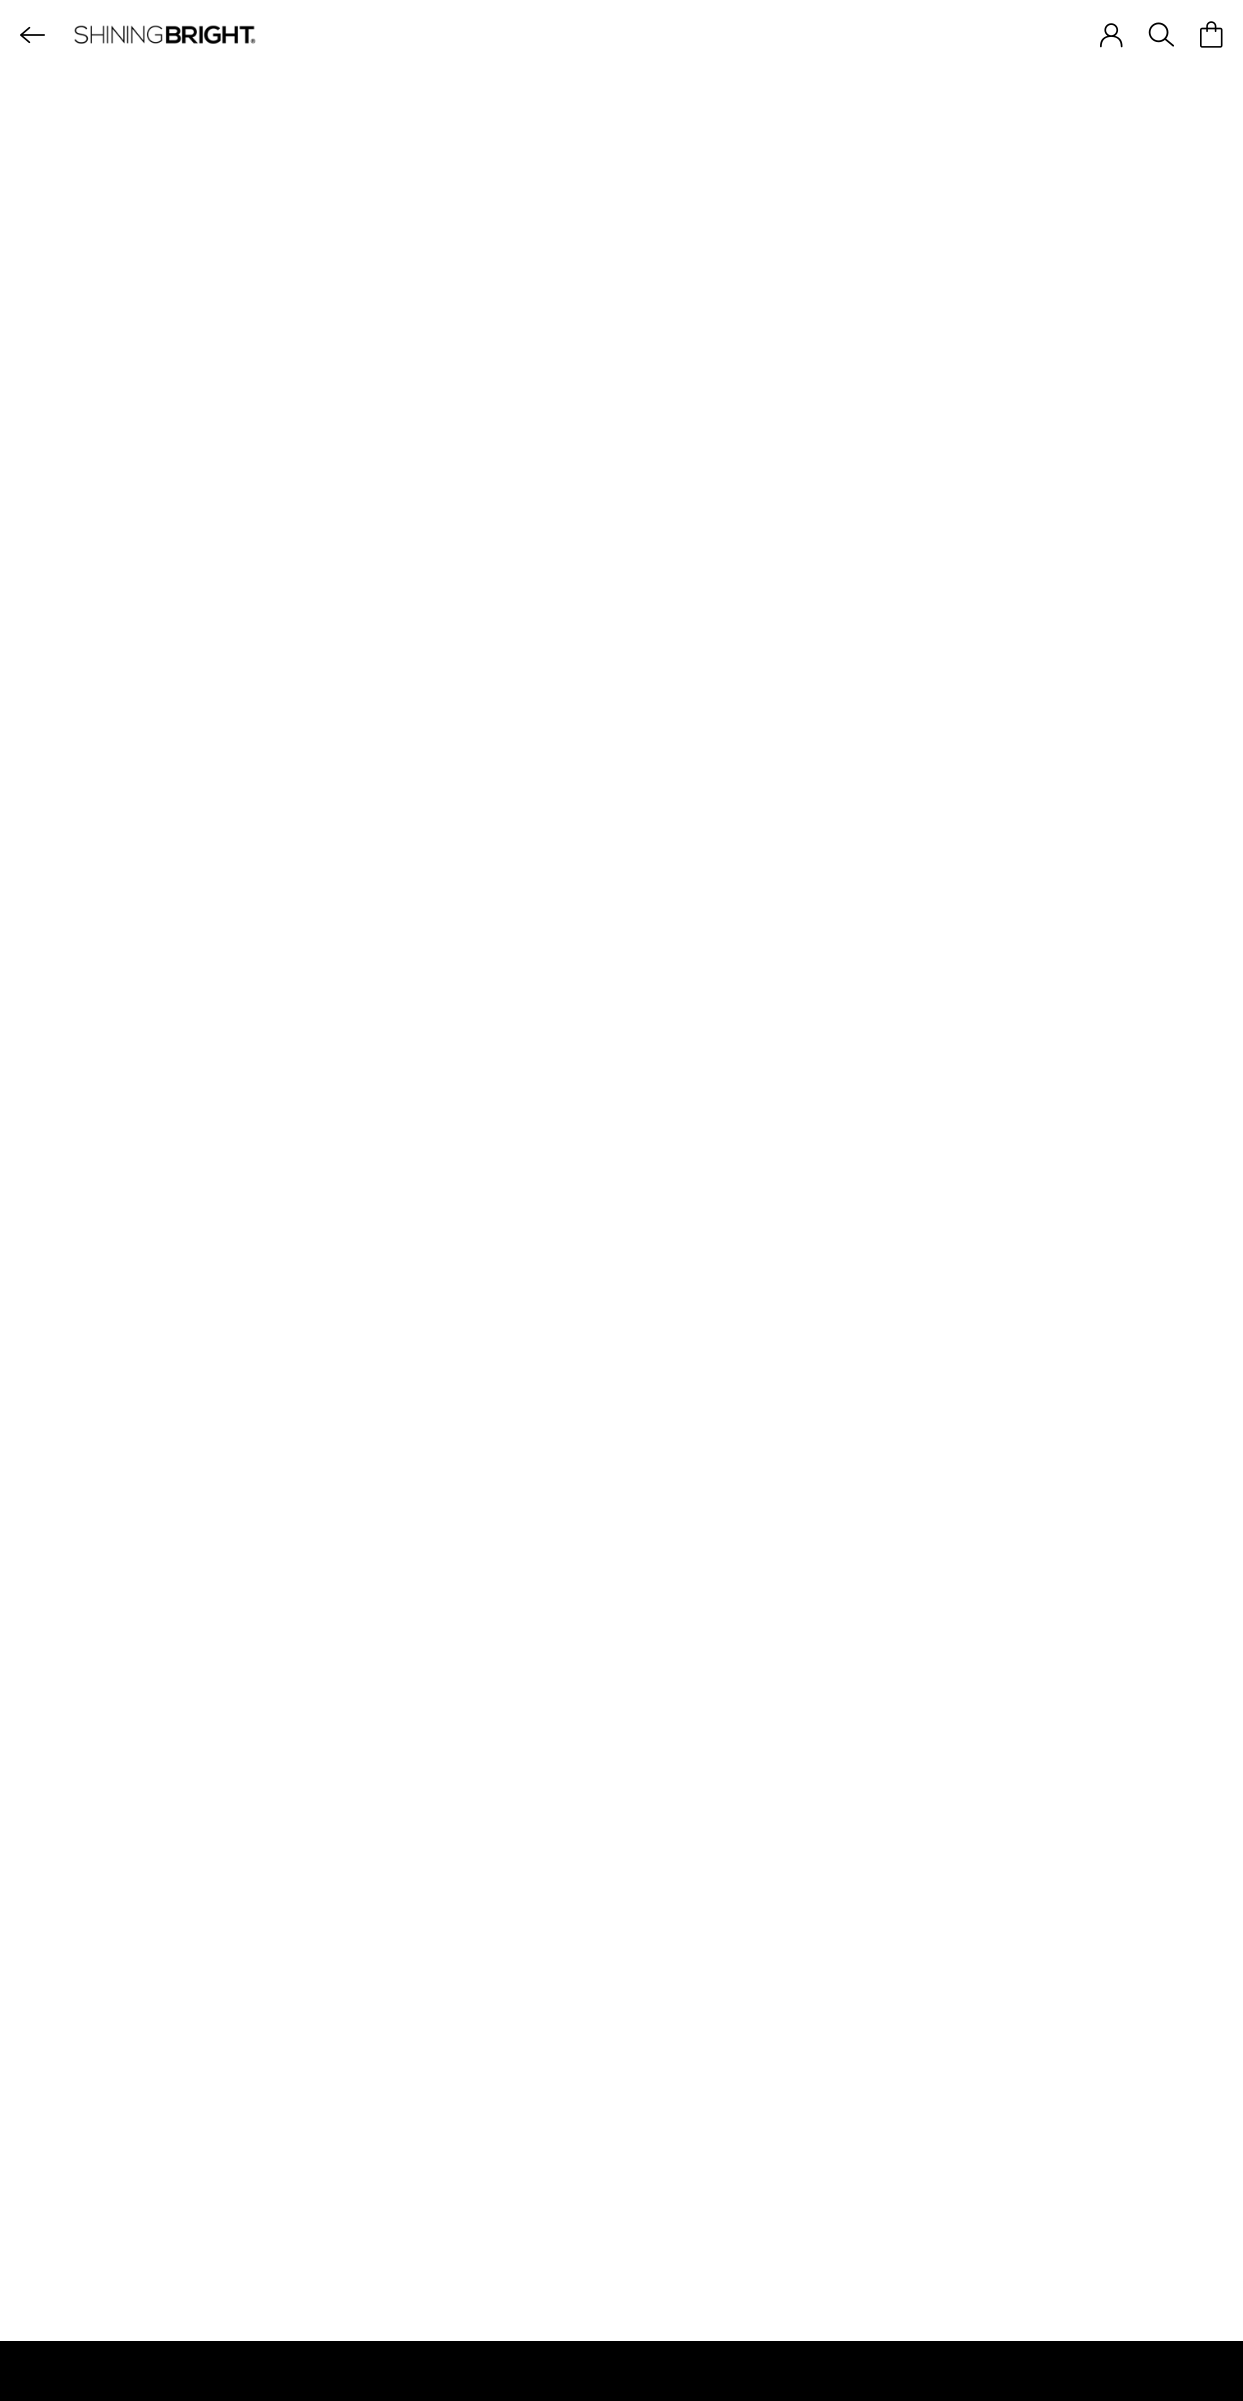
%!PS
<< /PageSize [1243 2401] >> setpagedevice
/rgb { 3 { 255 div 3 1 roll } repeat setrgbcolor } def
/picture { 5 dict begin { /h /w /y /x /name } { exch def } forall
  gsave x y translate w h scale
  w h 8 [w 0 0 h 0 0] name (r) file false 3 colorimage grestore end } def
0 2401 translate 1 -1 scale
4 setmiterlimit
255 255 255 rgb
0 0 1243 2401 rectfill
(img_01.rgb) 20 26 25 18 picture
(img_02.rgb) 74 25 182 19 picture
(img_03.rgb) 1100 23 23 25 picture
(img_04.rgb) 1148 22 26 25 picture
(img_05.rgb) 1200 21 23 27 picture
0 0 0 rgb
0 2341 1243 60 rectfill
showpage
